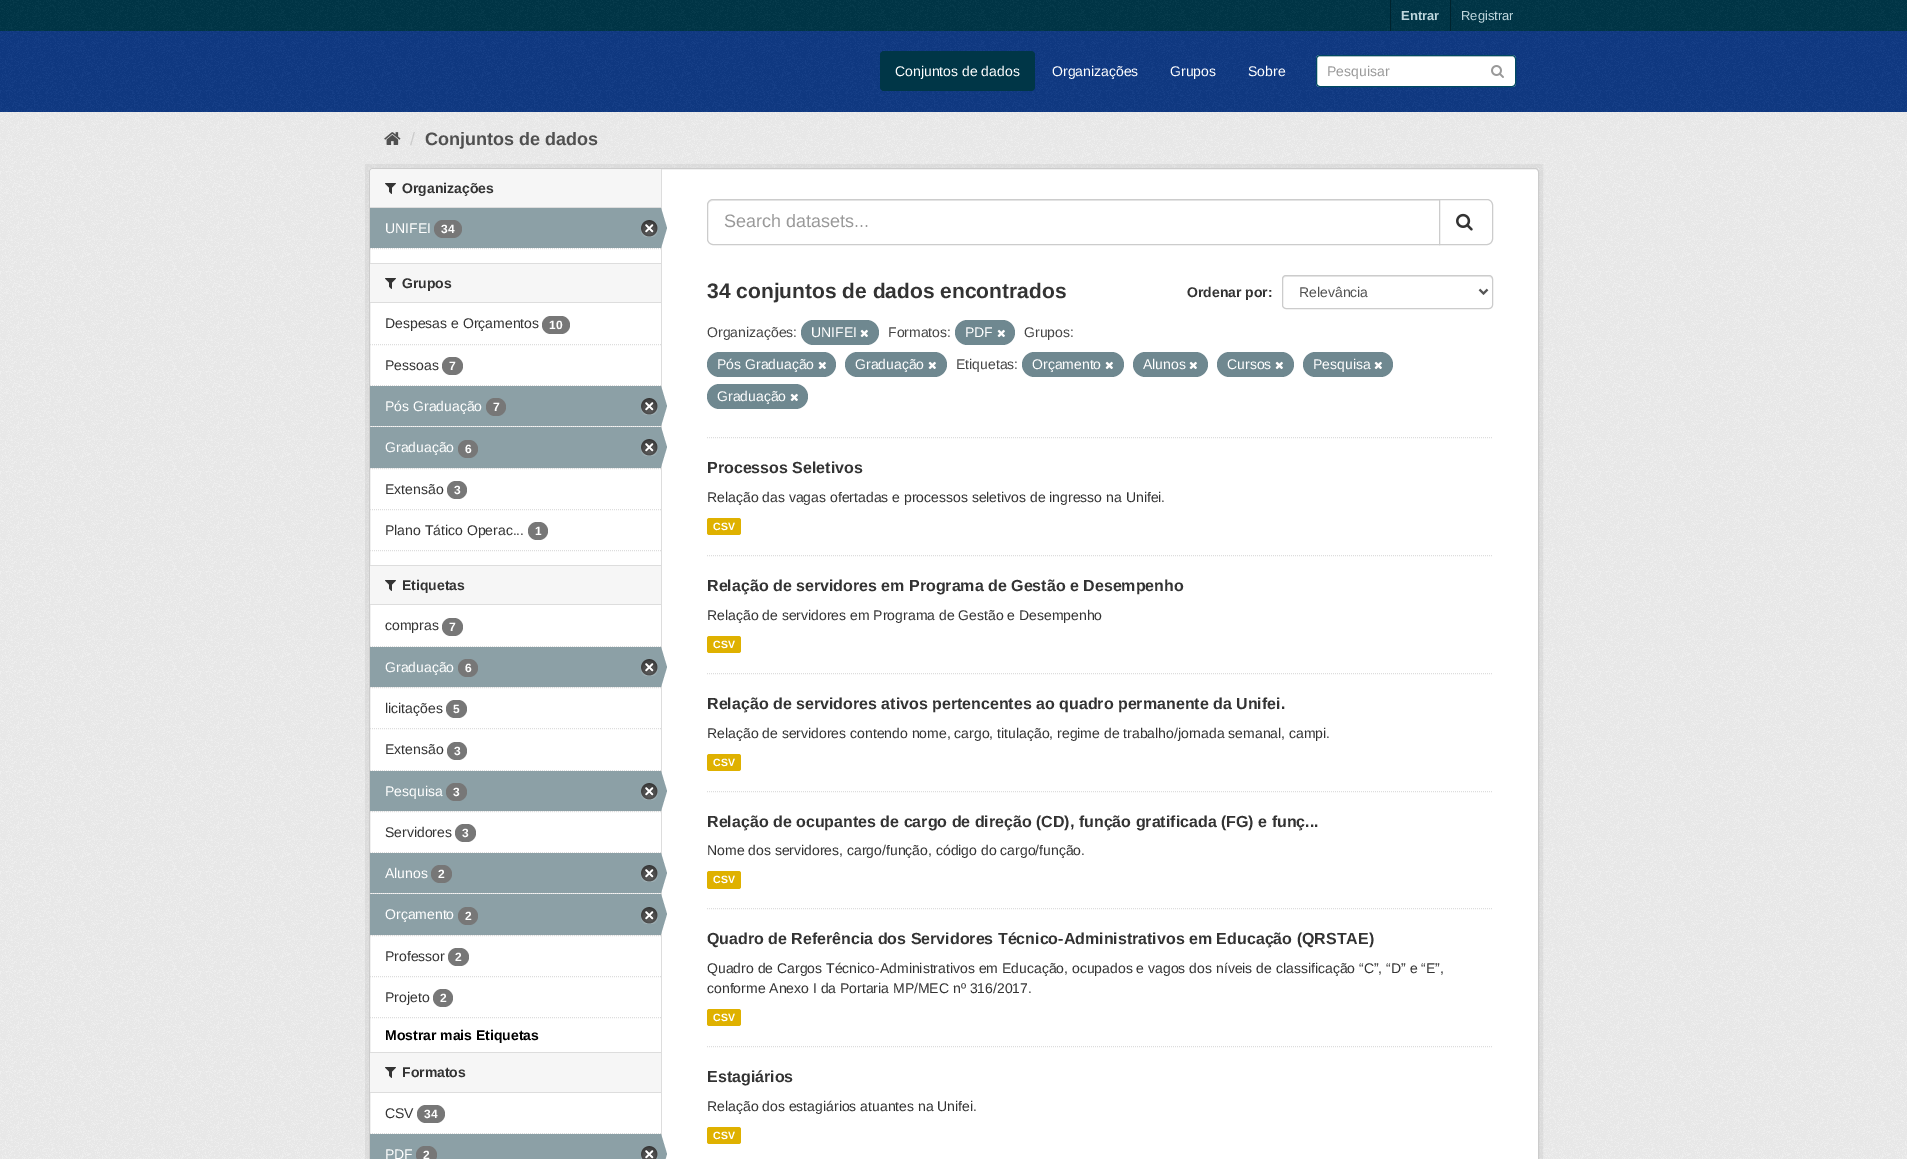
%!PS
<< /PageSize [1907 1159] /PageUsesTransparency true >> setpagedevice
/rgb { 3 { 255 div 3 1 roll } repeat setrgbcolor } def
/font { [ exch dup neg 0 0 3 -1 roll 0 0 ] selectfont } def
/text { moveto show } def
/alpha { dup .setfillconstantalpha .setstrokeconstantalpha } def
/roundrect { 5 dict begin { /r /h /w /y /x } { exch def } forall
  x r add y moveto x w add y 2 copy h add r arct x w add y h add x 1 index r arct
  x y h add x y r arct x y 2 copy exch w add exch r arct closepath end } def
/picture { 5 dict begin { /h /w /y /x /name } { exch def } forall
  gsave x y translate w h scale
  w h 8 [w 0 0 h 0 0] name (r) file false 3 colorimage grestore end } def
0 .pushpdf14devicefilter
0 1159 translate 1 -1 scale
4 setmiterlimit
0 54 71 rgb
0 0 1907 1159 rectfill
(img_01.rgb) 0 0 1907 31 picture
0 35 46 rgb
1390 0 1 31 rectfill
1450 0 1 31 rectfill
16 58 132 rgb
0 31 1907 81 rectfill
(img_02.rgb) 0 31 1907 81 picture
0 54 71 rgb
880 51 155 40 4 roundrect fill
255 255 255 rgb
1316 55 200 32 4 roundrect fill
236 236 236 rgb
1320 57 moveto 192 0 rlineto 2 0 3 1 3 3 rcurveto 0 -2 -1 -4 -3 -4 rcurveto -192 0 rlineto -2 0 -3 2 -3 4 rcurveto 0 -2 1 -3 3 -3 rcurveto closepath fill
0 74 97 rgb
1316.5 55.5 199 31 3.5 roundrect stroke
(img_03.rgb) 1491 65 13 13 picture
238 238 238 rgb
0 112 1907 1047 rectfill
(img_04.rgb) 0 112 1907 1047 picture
(img_05.rgb) 384 132 17 13 picture
0.05 alpha
0 0 0 rgb
4 setlinewidth
367 166 1174 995 rectstroke
1 alpha
255 255 255 rgb
369.5 168.5 1169 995 3.5 roundrect gsave fill grestore
204 204 204 rgb
1 setlinewidth
stroke
246 246 246 rgb
373 169 moveto 288 0 rlineto 0 39 rlineto -291 0 rlineto 0 -36 rlineto 0 -1.5 1.5 -3 3 -3 rcurveto closepath fill
221 221 221 rgb
370 207 291 1 rectfill
(img_06.rgb) 385 183 11 11 picture
140 160 166 rgb
370 208 291 40 rectfill
119 119 119 rgb
434 220 28 18 9 roundrect fill
(img_07.rgb) 641 220 17 17 picture
221 221 221 rgb
661 169 1 969 rectfill
140 160 166 rgb
661 248 moveto 0 -40 rlineto 6 20 rlineto closepath fill
221 221 221 rgb
[1 1] 0 setdash
370 248.5 moveto 291 0 rlineto stroke
246 246 246 rgb
370 264 291 38 rectfill
221 221 221 rgb
370 263 291 1 rectfill
370 302 291 1 rectfill
(img_06.rgb) 385 278 11 11 picture
370 344.5 moveto 291 0 rlineto stroke
119 119 119 rgb
542 316 28 18 9 roundrect fill
221 221 221 rgb
370 385.5 moveto 291 0 rlineto stroke
119 119 119 rgb
442 357 21 18 9 roundrect fill
246 246 246 rgb
371 426 289 1 rectfill
221 221 221 rgb
370 426.5 moveto 291 0 rlineto stroke
140 160 166 rgb
370 386 291 40 rectfill
119 119 119 rgb
486 398 20 18 9 roundrect fill
(img_07.rgb) 641 398 17 17 picture
140 160 166 rgb
661 426 moveto 0 -40 rlineto 6 20 rlineto closepath fill
246 246 246 rgb
371 468 289 1 rectfill
221 221 221 rgb
370 468.5 moveto 291 0 rlineto stroke
140 160 166 rgb
370 427 291 41 rectfill
119 119 119 rgb
458 440 20 18 9 roundrect fill
(img_07.rgb) 641 439 17 17 picture
140 160 166 rgb
661 467 moveto 0 -40 rlineto 6 20 rlineto closepath fill
221 221 221 rgb
370 509.5 moveto 291 0 rlineto stroke
119 119 119 rgb
447 481 20 18 9 roundrect fill
528 522 20 18 9 roundrect fill
221 221 221 rgb
370 550.5 moveto 291 0 rlineto stroke
246 246 246 rgb
370 566 291 38 rectfill
221 221 221 rgb
370 565 291 1 rectfill
370 604 291 1 rectfill
(img_06.rgb) 385 580 11 11 picture
370 646.5 moveto 291 0 rlineto stroke
119 119 119 rgb
442 618 21 18 9 roundrect fill
246 246 246 rgb
371 687 289 1 rectfill
221 221 221 rgb
370 687.5 moveto 291 0 rlineto stroke
140 160 166 rgb
370 647 291 40 rectfill
119 119 119 rgb
458 659 20 18 9 roundrect fill
(img_07.rgb) 641 659 17 17 picture
140 160 166 rgb
661 687 moveto 0 -40 rlineto 6 20 rlineto closepath fill
221 221 221 rgb
370 728.5 moveto 291 0 rlineto stroke
119 119 119 rgb
446 700 21 18 9 roundrect fill
221 221 221 rgb
370 770.5 moveto 291 0 rlineto stroke
119 119 119 rgb
447 742 20 18 9 roundrect fill
246 246 246 rgb
371 811 289 1 rectfill
221 221 221 rgb
370 811.5 moveto 291 0 rlineto stroke
140 160 166 rgb
370 771 291 40 rectfill
119 119 119 rgb
446 783 21 18 9 roundrect fill
(img_07.rgb) 641 783 17 17 picture
140 160 166 rgb
661 811 moveto 0 -40 rlineto 6 20 rlineto closepath fill
221 221 221 rgb
370 852.5 moveto 291 0 rlineto stroke
119 119 119 rgb
455 824 21 18 9 roundrect fill
246 246 246 rgb
371 893 289 1 rectfill
221 221 221 rgb
370 893.5 moveto 291 0 rlineto stroke
140 160 166 rgb
370 853 291 40 rectfill
119 119 119 rgb
431 865 21 18 9 roundrect fill
(img_07.rgb) 641 865 17 17 picture
140 160 166 rgb
661 893 moveto 0 -40 rlineto 6 20 rlineto closepath fill
246 246 246 rgb
371 935 289 1 rectfill
221 221 221 rgb
370 935.5 moveto 291 0 rlineto stroke
140 160 166 rgb
370 894 291 41 rectfill
119 119 119 rgb
458 907 20 18 9 roundrect fill
(img_07.rgb) 641 907 17 17 picture
140 160 166 rgb
661 934 moveto 0 -40 rlineto 6 20 rlineto closepath fill
221 221 221 rgb
370 976.5 moveto 291 0 rlineto stroke
119 119 119 rgb
448 948 21 18 9 roundrect fill
433 989 20 18 9 roundrect fill
221 221 221 rgb
370 1017.5 moveto 291 0 rlineto stroke
246 246 246 rgb
370 1053 291 39 rectfill
221 221 221 rgb
370 1052 291 1 rectfill
370 1092 291 1 rectfill
(img_06.rgb) 385 1067 11 11 picture
370 1133.5 moveto 291 0 rlineto stroke
119 119 119 rgb
417 1105 28 18 9 roundrect fill
140 160 166 rgb
370 1134 291 25 rectfill
119 119 119 rgb
416 1146 21 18 9 roundrect fill
(img_08.rgb) 641 1146 17 13 picture
140 160 166 rgb
661 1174 moveto 0 -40 rlineto 6 20 rlineto closepath fill
221 221 221 rgb
707 437.5 moveto 786 0 rlineto stroke
236 236 236 rgb
713 201 moveto 726 0 rlineto 0 -1 rlineto -726 0 rlineto -3 0 -5 3 -5 6 rcurveto 0 -3 2 -5 5 -5 rcurveto closepath fill
204 204 204 rgb
[] 0 setdash
713 199.5 moveto 726.5 0 rlineto 0 45 rlineto -726.5 0 rlineto -3 0 -5.5 -2.5 -5.5 -5.5 rcurveto 0 -34 rlineto 0 -3 2.5 -5.5 5.5 -5.5 rcurveto closepath stroke
255 255 255 rgb
1439.5 199.5 moveto 47.5 0 rlineto 3 0 5.5 2.5 5.5 5.5 rcurveto 0 34 rlineto 0 3 -2.5 5.5 -5.5 5.5 rcurveto -47.5 0 rlineto closepath gsave fill grestore
204 204 204 rgb
stroke
(img_09.rgb) 1456 213 17 18 picture
236 236 236 rgb
1286 277 moveto 203 0 rlineto 2 0 3 1 3 3 rcurveto 0 -1 rlineto 0 -2 -1 -3 -3 -3 rcurveto -203 0 rlineto -2 0 -3 1 -3 3 rcurveto 0 1 rlineto 0 -2 1 -3 3 -3 rcurveto closepath fill
204 204 204 rgb
1282.5 275.5 210 33 3.5 roundrect stroke
85 85 85 rgb
2 setlinewidth
1479.5 289.5 moveto 4 4 rlineto 4 -4 rlineto stroke
111 136 144 rgb
801 320 78 25 12.5 roundrect fill
(img_10.rgb) 860 329 8 8 picture
955 320 60 25 12.5 roundrect fill
(img_10.rgb) 997 329 8 8 picture
707 352 129 25 12.5 roundrect fill
(img_10.rgb) 818 361 8 8 picture
845 352 102 25 12.5 roundrect fill
(img_10.rgb) 928 361 8 8 picture
1022 352 102 25 12.5 roundrect fill
(img_10.rgb) 1105 361 8 8 picture
1133 352 75 25 12.5 roundrect fill
(img_10.rgb) 1189 361 8 8 picture
1217 352 77 25 12.5 roundrect fill
(img_10.rgb) 1275 361 8 8 picture
1303 352 90 25 12.5 roundrect fill
(img_10.rgb) 1374 361 8 8 picture
707 384 101 25 12.5 roundrect fill
(img_10.rgb) 790 393 8 8 picture
221 221 221 rgb
1 setlinewidth
[1 1] 0 setdash
707 555.5 moveto 786 0 rlineto stroke
223 177 0 rgb
707 518 34 17 2.5 roundrect fill
221 221 221 rgb
707 673.5 moveto 786 0 rlineto stroke
223 177 0 rgb
707 636 34 17 2.5 roundrect fill
221 221 221 rgb
707 791.5 moveto 786 0 rlineto stroke
223 177 0 rgb
707 754 34 17 2.5 roundrect fill
221 221 221 rgb
707 908.5 moveto 786 0 rlineto stroke
223 177 0 rgb
707 871 34 18 2.5 roundrect fill
221 221 221 rgb
707 1046.5 moveto 786 0 rlineto stroke
223 177 0 rgb
707 1009 34 17 2.5 roundrect fill
707 1127 34 17 2.5 roundrect fill
/LiberationSans-Bold 13 font
191 215 222 rgb
(Entrar) 1401 20 text
/LiberationSans-Regular 13 font
(Registrar) 1461 20 text
/LiberationSans-Regular 14 font
255 255 255 rgb
(Conjuntos de dados) 895 76 text
(Organizações) 1052 76 text
(Grupos) 1170 76 text
(Sobre) 1248 76 text
153 153 153 rgb
(Pesquisar) 1327 76 text
/LiberationSans-Regular 18 font
204 204 204 rgb
(/) 410 145 text
/LiberationSans-Bold 18 font
80 80 80 rgb
(Conjuntos de dados) 425 145 text
/LiberationSans-Bold 14 font
51 51 51 rgb
(Organizações) 402 193 text
/LiberationSans-Regular 14 font
255 255 255 rgb
(UNIFEI) 385 233 text
/LiberationSans-Bold 12 font
(34) 441 233 text
/LiberationSans-Bold 14 font
51 51 51 rgb
(Grupos) 402 288 text
/LiberationSans-Regular 14 font
(Despesas e Orçamentos) 385 328 text
/LiberationSans-Bold 12 font
255 255 255 rgb
(10) 549 329 text
/LiberationSans-Regular 14 font
51 51 51 rgb
(Pessoas) 385 370 text
/LiberationSans-Bold 12 font
255 255 255 rgb
(7) 449 370 text
/LiberationSans-Regular 14 font
(Pós Graduação) 385 411 text
/LiberationSans-Bold 12 font
(7) 493 411 text
/LiberationSans-Regular 14 font
(Graduação) 385 452 text
/LiberationSans-Bold 12 font
(6) 465 453 text
/LiberationSans-Regular 14 font
51 51 51 rgb
(Extensão) 385 494 text
/LiberationSans-Bold 12 font
255 255 255 rgb
(3) 454 494 text
/LiberationSans-Regular 14 font
51 51 51 rgb
(Plano Tático Operac...) 385 535 text
/LiberationSans-Bold 12 font
255 255 255 rgb
(1) 535 535 text
/LiberationSans-Bold 14 font
51 51 51 rgb
(Etiquetas) 402 590 text
/LiberationSans-Regular 14 font
(compras) 385 630 text
/LiberationSans-Bold 12 font
255 255 255 rgb
(7) 449 631 text
/LiberationSans-Regular 14 font
(Graduação) 385 672 text
/LiberationSans-Bold 12 font
(6) 465 672 text
/LiberationSans-Regular 14 font
51 51 51 rgb
(licitações) 385 713 text
/LiberationSans-Bold 12 font
255 255 255 rgb
(5) 453 713 text
/LiberationSans-Regular 14 font
51 51 51 rgb
(Extensão) 385 754 text
/LiberationSans-Bold 12 font
255 255 255 rgb
(3) 454 755 text
/LiberationSans-Regular 14 font
(Pesquisa) 385 796 text
/LiberationSans-Bold 12 font
(3) 453 796 text
/LiberationSans-Regular 14 font
51 51 51 rgb
(Servidores) 385 837 text
/LiberationSans-Bold 12 font
255 255 255 rgb
(3) 462 837 text
/LiberationSans-Regular 14 font
(Alunos) 385 878 text
/LiberationSans-Bold 12 font
(2) 438 878 text
/LiberationSans-Regular 14 font
(Orçamento) 385 919 text
/LiberationSans-Bold 12 font
(2) 465 920 text
/LiberationSans-Regular 14 font
51 51 51 rgb
(Professor) 385 961 text
/LiberationSans-Bold 12 font
255 255 255 rgb
(2) 455 961 text
/LiberationSans-Regular 14 font
51 51 51 rgb
(Projeto) 385 1002 text
/LiberationSans-Bold 12 font
255 255 255 rgb
(2) 440 1002 text
/LiberationSans-Bold 14 font
0 0 0 rgb
(Mostrar mais Etiquetas) 385 1040 text
51 51 51 rgb
(Formatos) 402 1077 text
/LiberationSans-Regular 14 font
(CSV) 385 1118 text
/LiberationSans-Bold 12 font
255 255 255 rgb
(34) 424 1118 text
/LiberationSans-Regular 14 font
(PDF) 385 1159 text
/LiberationSans-Bold 12 font
(2) 423 1159 text
/LiberationSans-Regular 18 font
153 153 153 rgb
(Search datasets...) 724 227 text
/LiberationSans-Bold 21 font
51 51 51 rgb
(34 conjuntos de dados encontrados) 707 298 text
/LiberationSans-Bold 14 font
(Ordenar por:) 1187 297 text
/LiberationSans-Regular 14 font
80 80 80 rgb
(Relevância) 1299 297 text
68 68 68 rgb
(Organizações:) 707 337 text
255 255 255 rgb
(UNIFEI) 811 337 text
68 68 68 rgb
(Formatos:) 888 337 text
255 255 255 rgb
(PDF) 965 337 text
68 68 68 rgb
(Grupos:) 1024 337 text
255 255 255 rgb
(Pós Graduação) 717 369 text
(Graduação) 855 369 text
68 68 68 rgb
(Etiquetas:) 956 369 text
255 255 255 rgb
(Orçamento) 1032 369 text
(Alunos) 1143 369 text
(Cursos) 1227 369 text
(Pesquisa) 1313 369 text
(Graduação) 717 401 text
/LiberationSans-Bold 16 font
51 51 51 rgb
(Processos Seletivos) 707 473 text
/LiberationSans-Regular 14 font
(Relação das vagas ofertadas e processos seletivos de ingresso na Unifei.) 707 502 text
/LiberationSans-Bold 10.5 font
255 255 255 rgb
(CSV) 713 530 text
/LiberationSans-Bold 16 font
51 51 51 rgb
(Relação de servidores em Programa de Gestão e Desempenho) 707 591 text
/LiberationSans-Regular 14 font
(Relação de servidores em Programa de Gestão e Desempenho) 707 620 text
/LiberationSans-Bold 10.5 font
255 255 255 rgb
(CSV) 713 648 text
/LiberationSans-Bold 16 font
51 51 51 rgb
(Relação de servidores ativos pertencentes ao quadro permanente da Unifei.) 707 709 text
/LiberationSans-Regular 14 font
(Relação de servidores contendo nome, cargo, titulação, regime de trabalho/jornada semanal, campi.) 707 738 text
/LiberationSans-Bold 10.5 font
255 255 255 rgb
(CSV) 713 766 text
/LiberationSans-Bold 16 font
51 51 51 rgb
(Relação de ocupantes de cargo de direção \(CD\), função gratificada \(FG\) e funç...) 707 827 text
/LiberationSans-Regular 14 font
(Nome dos servidores, cargo/função, código do cargo/função.) 707 855 text
/LiberationSans-Bold 10.5 font
255 255 255 rgb
(CSV) 713 883 text
/LiberationSans-Bold 16 font
51 51 51 rgb
(Quadro de Referência dos Servidores Técnico-Administrativos em Educação \(QRSTAE\)) 707 944 text
/LiberationSans-Regular 14 font
(Quadro de Cargos Técnico-Administrativos em Educação, ocupados e vagos dos níveis de classificação “C”, “D” e “E”,) 707 973 text
(conforme Anexo I da Portaria MP/MEC nº 316/2017.) 707 993 text
/LiberationSans-Bold 10.5 font
255 255 255 rgb
(CSV) 713 1021 text
/LiberationSans-Bold 16 font
51 51 51 rgb
(Estagiários) 707 1082 text
/LiberationSans-Regular 14 font
(Relação dos estagiários atuantes na Unifei.) 707 1111 text
/LiberationSans-Bold 10.5 font
255 255 255 rgb
(CSV) 713 1139 text
.poppdf14devicefilter showpage
